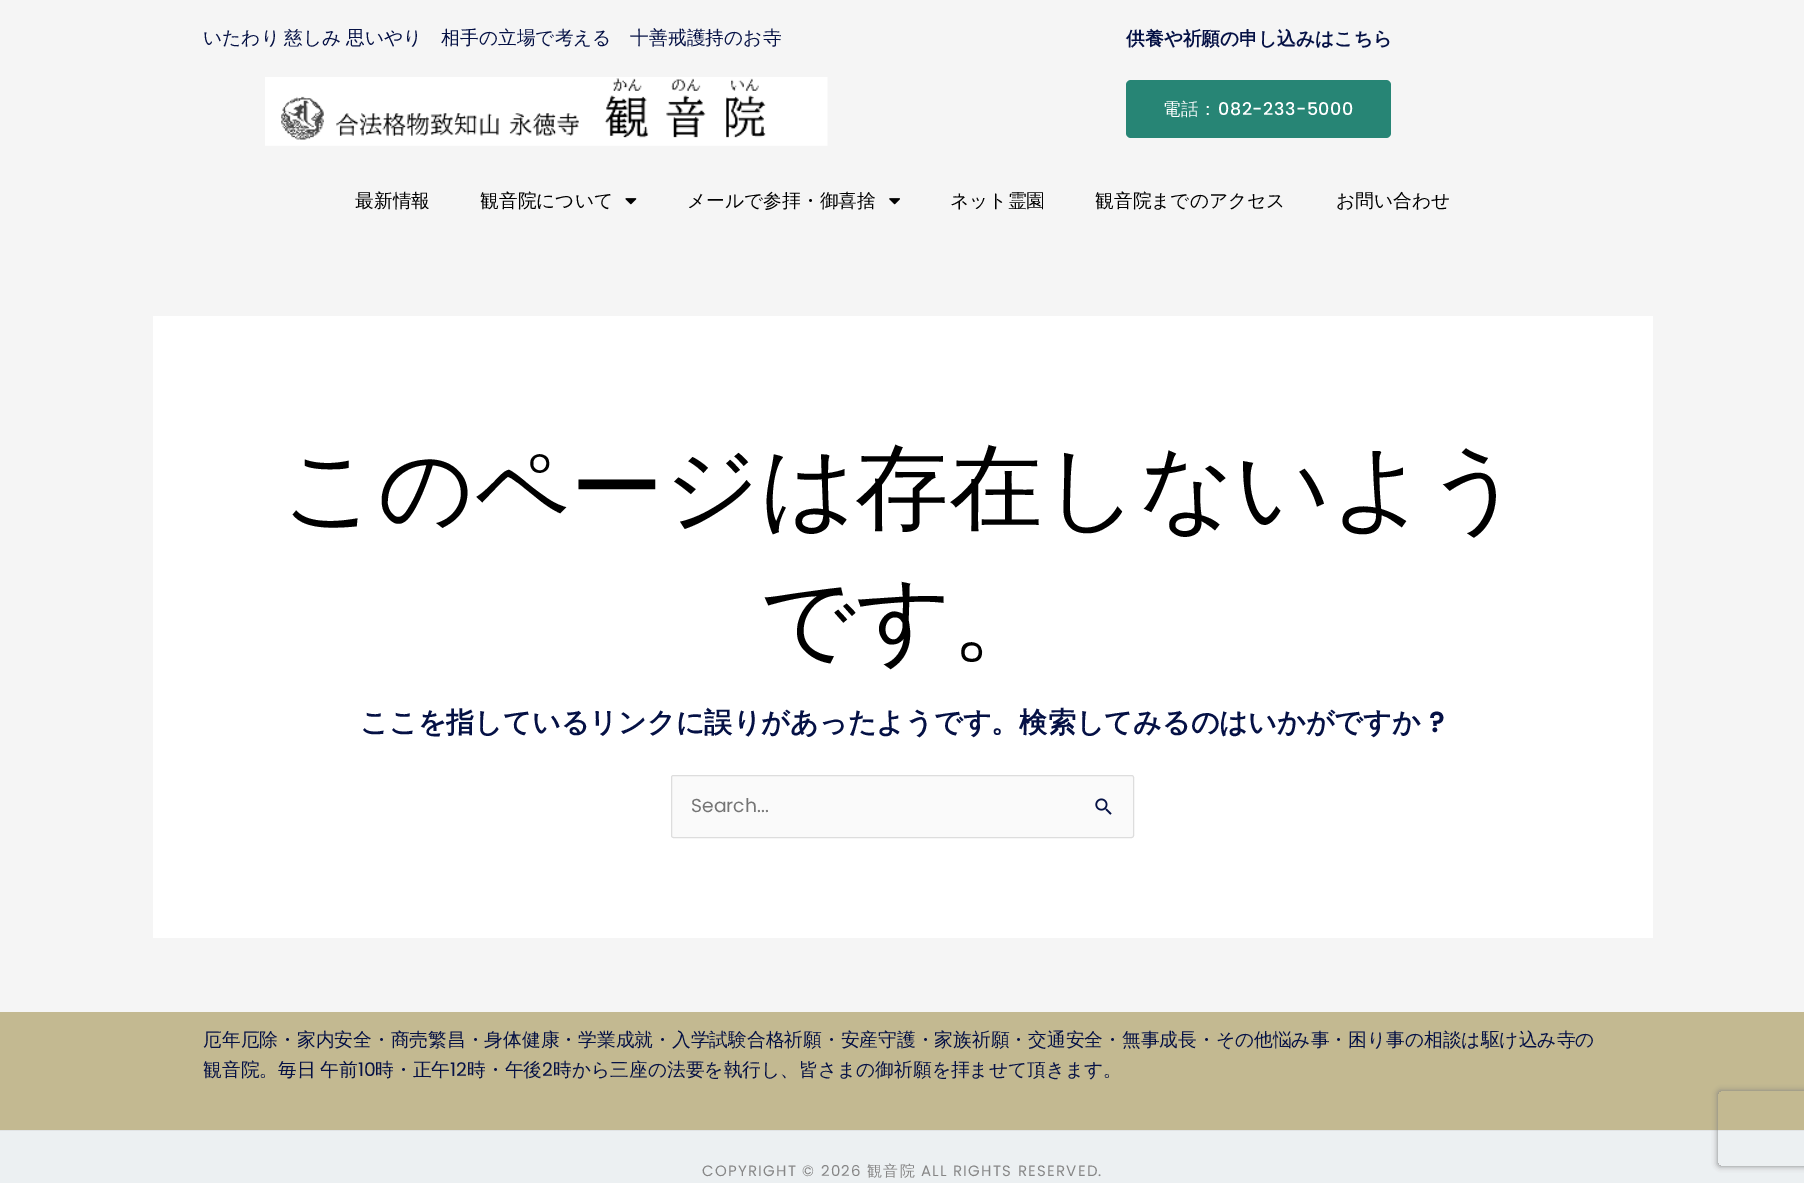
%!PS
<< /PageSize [1804 1183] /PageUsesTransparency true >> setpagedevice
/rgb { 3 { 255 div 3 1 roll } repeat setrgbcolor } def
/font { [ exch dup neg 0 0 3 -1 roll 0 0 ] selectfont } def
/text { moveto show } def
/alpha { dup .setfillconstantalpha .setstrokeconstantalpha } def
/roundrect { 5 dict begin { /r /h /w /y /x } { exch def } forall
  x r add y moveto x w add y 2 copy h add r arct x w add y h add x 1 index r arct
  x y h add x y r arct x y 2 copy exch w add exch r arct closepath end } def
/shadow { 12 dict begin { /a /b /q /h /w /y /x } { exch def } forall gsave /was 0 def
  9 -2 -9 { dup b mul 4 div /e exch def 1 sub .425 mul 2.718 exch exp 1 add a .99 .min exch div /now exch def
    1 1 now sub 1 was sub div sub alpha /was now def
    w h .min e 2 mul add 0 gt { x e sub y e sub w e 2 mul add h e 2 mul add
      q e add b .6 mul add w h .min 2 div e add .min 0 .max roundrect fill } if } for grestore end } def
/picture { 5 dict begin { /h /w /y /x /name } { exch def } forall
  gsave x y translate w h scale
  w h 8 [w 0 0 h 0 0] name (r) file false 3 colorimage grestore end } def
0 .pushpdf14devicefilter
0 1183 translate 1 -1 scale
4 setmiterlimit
245 245 245 rgb
0 0 1804 1183 rectfill
(img_01.rgb) 265 77 563 69 picture
39 133 117 rgb
1126 80 265 58 5 roundrect fill
(img_02.rgb) 625 198 12 7 picture
(img_03.rgb) 889 198 11 7 picture
255 255 255 rgb
153 316 1500 622 rectfill
250 250 250 rgb
671.5 775.5 462 62 2 roundrect gsave fill grestore
221 221 221 rgb
stroke
(img_04.rgb) 1095 798 17 17 picture
195 185 145 rgb
0 1012 1804 118 rectfill
236 240 242 rgb
0 1131 1804 52 rectfill
225 228 230 rgb
0 1130 1804 1 rectfill
gsave
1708 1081 moveto 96 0 rlineto 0 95 rlineto -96 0 rlineto closepath 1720.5 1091 moveto 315 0 rlineto 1.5 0 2.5 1 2.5 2.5 rcurveto 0 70 rlineto 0 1.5 -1 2.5 -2.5 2.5 rcurveto -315 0 rlineto -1.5 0 -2.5 -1 -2.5 -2.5 rcurveto 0 -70 rlineto 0 -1.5 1 -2.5 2.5 -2.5 rcurveto closepath eoclip newpath
128 128 128 rgb
1718 1091 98 75 2.5 3 1 shadow
grestore
/WenQuanYiZenHei-Medium 18.75 font
5 17 69 rgb
203 44 moveto -1 0 32 (いたわり 慈しみ 思いやり　相手の立場で考える　十善戒護持のお寺) widthshow
/WenQuanYiZenHei-Bold 18.75 font
(供養や祈願の申し込みはこちら) 1126 45 text
/WenQuanYiZenHei-Medium 17.5 font
255 255 255 rgb
1163 115 moveto 0.6 0 (電話：) ashow
/Poppins-Medium 17.5 font
1218 115 moveto 0.6 0 (082-233-5000) ashow
/WenQuanYiZenHei-Medium 18.75 font
0 0 0 rgb
(最新情報) 355 207 text
(観音院について) 480 207 text
(メールで参拝・御喜捨) 687 207 text
(ネット霊園) 950 207 text
(観音院までのアクセス) 1095 207 text
(お問い合わせ) 1336 207 text
/WenQuanYiZenHei-Medium 93.75 font
(このページは存在しないよう) 282 520 text
(です。) 760 652 text
/WenQuanYiZenHei-Bold 28.1 font
5 17 69 rgb
(ここを指しているリンクに誤りがあったようです。検索してみるのはいかがですか) 360 732 text
/Poppins-Bold 28.1 font
(?) 1429 732 text
/Poppins-Regular 18.75 font
117 117 117 rgb
(Search...) 691 812 text
/WenQuanYiZenHei-Medium 18.75 font
5 17 69 rgb
(厄年厄除・家内安全・商売繁昌・身体健康・学業成就・入学試験合格祈願・安産守護・家族祈願・交通安全・無事成長・その他悩み事・困り事の相談は駆け込み寺の) 203 1046 text
203 1076 moveto -1 0 32 (観音院。毎日 午前) widthshow
/Poppins-Regular 18.75 font
(10) 358 1076 text
/WenQuanYiZenHei-Medium 18.75 font
(時・正午) 375 1076 text
/Poppins-Regular 18.75 font
(12) 450 1076 text
/WenQuanYiZenHei-Medium 18.75 font
(時・午後) 467 1076 text
/Poppins-Regular 18.75 font
(2) 542 1076 text
/WenQuanYiZenHei-Medium 18.75 font
(時から三座の法要を執行し、皆さまの御祈願を拝ませて頂きます。) 553 1076 text
/Poppins-Regular 15 font
134 134 134 rgb
702 1176 moveto 1.25 0 (COPYRIGHT © 2026) ashow
/WenQuanYiZenHei-Medium 15 font
867 1176 moveto 1.25 0 (観音院) ashow
/Poppins-Regular 15 font
921 1176 moveto 1.25 0 (ALL RIGHTS RESERVED.) ashow
.poppdf14devicefilter showpage
